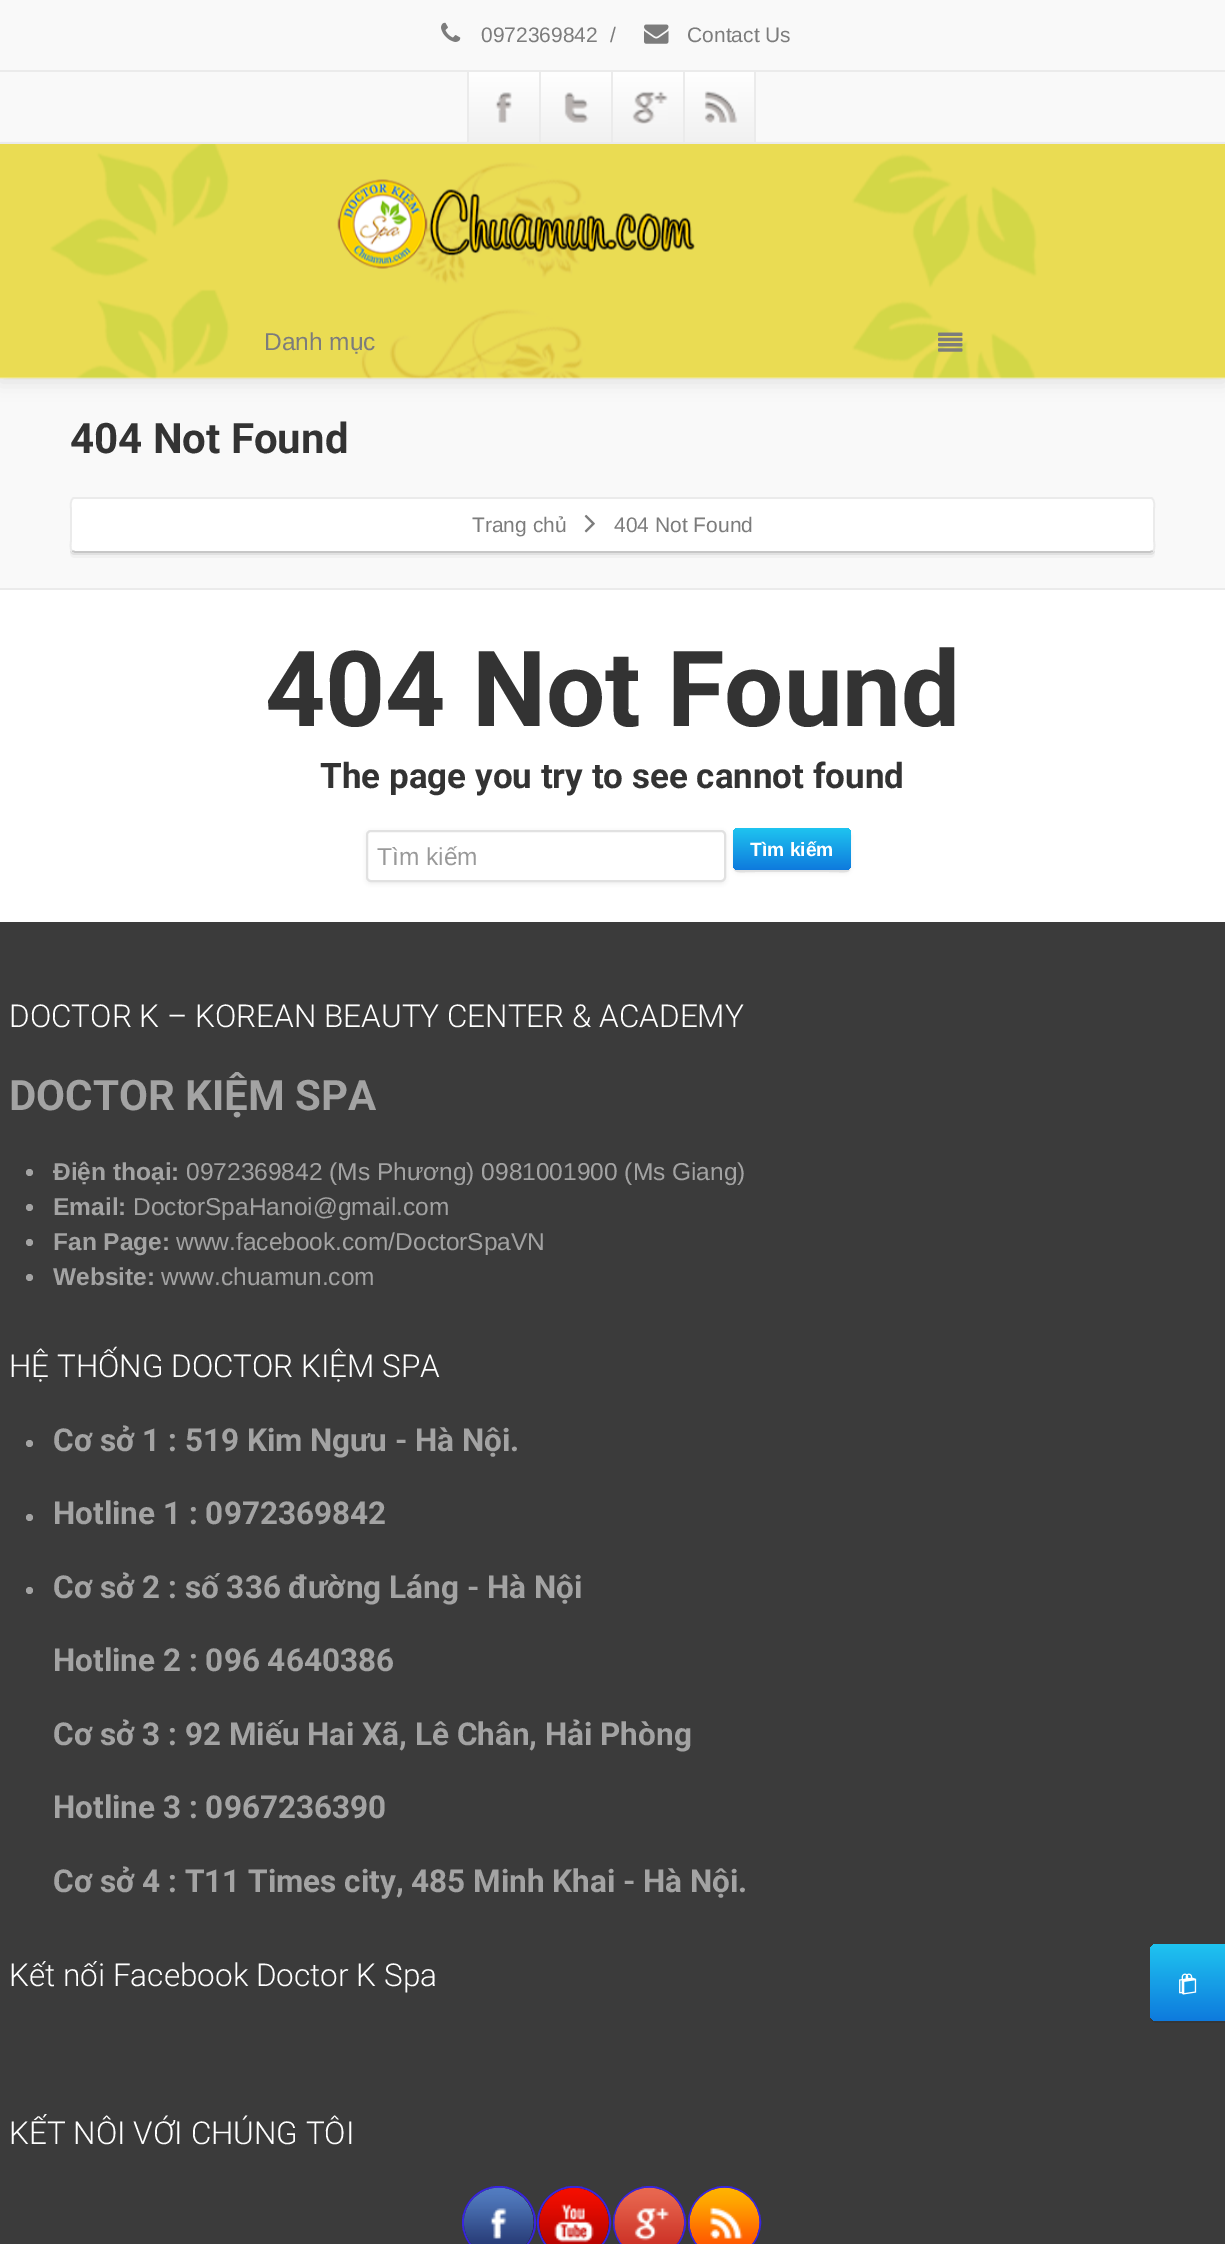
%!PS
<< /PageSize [1225 2244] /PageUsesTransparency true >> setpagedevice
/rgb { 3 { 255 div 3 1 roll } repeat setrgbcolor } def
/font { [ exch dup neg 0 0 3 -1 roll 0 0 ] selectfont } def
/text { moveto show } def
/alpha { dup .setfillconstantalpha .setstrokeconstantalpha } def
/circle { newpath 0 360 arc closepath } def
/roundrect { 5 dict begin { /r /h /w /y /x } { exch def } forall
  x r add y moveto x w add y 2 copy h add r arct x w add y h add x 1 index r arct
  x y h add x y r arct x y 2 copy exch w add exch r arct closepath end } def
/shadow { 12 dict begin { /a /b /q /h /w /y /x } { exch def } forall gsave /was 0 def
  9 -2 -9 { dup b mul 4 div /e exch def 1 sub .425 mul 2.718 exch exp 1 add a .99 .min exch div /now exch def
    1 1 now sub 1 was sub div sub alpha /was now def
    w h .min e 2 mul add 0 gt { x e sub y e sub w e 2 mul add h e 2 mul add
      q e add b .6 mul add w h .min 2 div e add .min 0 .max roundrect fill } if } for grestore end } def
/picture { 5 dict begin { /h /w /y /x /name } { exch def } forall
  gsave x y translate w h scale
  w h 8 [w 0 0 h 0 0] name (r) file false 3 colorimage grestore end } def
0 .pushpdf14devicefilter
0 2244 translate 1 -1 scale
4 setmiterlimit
255 255 255 rgb
0 0 1225 2244 rectfill
249 249 249 rgb
0 378 1225 210 rectfill
0 0 0 rgb
0 147 1225 235 0 9 0.1 shadow
249 249 249 rgb
0 0 1225 141 rectfill
235 235 235 rgb
0 142 1225 2 rectfill
0 70 1225 2 rectfill
(img_01.rgb) 441 22 20 20 picture
(img_02.rgb) 644 24 25 20 picture
gsave 469 72 moveto 70 0 rlineto 0 70 rlineto -70 0 rlineto closepath clip newpath
<< /ShadingType 2 /ColorSpace /DeviceRGB /Coords [504 72 504 142] /Extend [true true] /Function << /FunctionType 2 /Domain [0 1] /C0 [1 1 1] /C1 [0.945 0.945 0.945] /N 1 >> >> shfill grestore
467 72 2 70 rectfill
(img_03.rgb) 495 92 17 31 picture
gsave 541 72 moveto 70 0 rlineto 0 70 rlineto -70 0 rlineto closepath clip newpath
<< /ShadingType 2 /ColorSpace /DeviceRGB /Coords [576 72 576 142] /Extend [true true] /Function << /FunctionType 2 /Domain [0 1] /C0 [1 1 1] /C1 [0.945 0.945 0.945] /N 1 >> >> shfill grestore
539 72 2 70 rectfill
(img_04.rgb) 564 92 25 31 picture
gsave 613 72 moveto 70 0 rlineto 0 70 rlineto -70 0 rlineto closepath clip newpath
<< /ShadingType 2 /ColorSpace /DeviceRGB /Coords [648 72 648 142] /Extend [true true] /Function << /FunctionType 2 /Domain [0 1] /C0 [1 1 1] /C1 [0.945 0.945 0.945] /N 1 >> >> shfill grestore
611 72 2 70 rectfill
(img_05.rgb) 632 91 36 33 picture
gsave 685 72 moveto 69 0 rlineto 0 70 rlineto -69 0 rlineto closepath clip newpath
<< /ShadingType 2 /ColorSpace /DeviceRGB /Coords [719 72 719 142] /Extend [true true] /Function << /FunctionType 2 /Domain [0 1] /C0 [1 1 1] /C1 [0.945 0.945 0.945] /N 1 >> >> shfill grestore
754 72 2 70 rectfill
683 72 2 70 rectfill
(img_06.rgb) 704 91 34 32 picture
(img_07.rgb) 0 144 1225 235 picture
(img_08.rgb) 337 179 358 90 picture
(img_09.rgb) 938 332 25 20 picture
0 588 1225 2 rectfill
232 232 232 rgb
70 548 moveto 0 2 rlineto 0 3 2 5 5 5 rcurveto 1075 0 rlineto 3 0 5 -2 5 -5 rcurveto 0 -2 rlineto 0 3 -2 5 -5 5 rcurveto -1075 0 rlineto -3 0 -5 -2 -5 -5 rcurveto closepath fill
0.03 alpha
0 0 0 rgb
70 548 moveto 0 5 rlineto 0 3 2 5 5 5 rcurveto 1075 0 rlineto 3 0 5 -2 5 -5 rcurveto 0 -5 rlineto 0 3 -2 5 -5 5 rcurveto -1075 0 rlineto -3 0 -5 -2 -5 -5 rcurveto closepath fill
1 alpha
255 255 255 rgb
70 497 1085 56 5 roundrect fill
199 199 199 rgb
1.8 setlinewidth
1153 551 moveto -3 1 rlineto -1075 0 rlineto -3 -1 rlineto stroke
235 235 235 rgb
72 551 moveto -2.5 -2.5 -1 -8.5 -1 -11 rcurveto 0 -30 rlineto 0 -3 -1.5 -10 2.5 -12 rcurveto 1078 0 rlineto 4 2 2.5 9 2.5 12 rcurveto 0 30 rlineto 0 2.5 1.5 8.5 -1 11 rcurveto stroke
(img_10.rgb) 584 514 11 19 picture
180 180 180 rgb
366 831 360 53 5 2 0.2 shadow
255 255 255 rgb
367 831 358 50 4 roundrect gsave fill grestore
225 225 225 rgb
2 setlinewidth
stroke
235 235 235 rgb
733 833 moveto 0 23 rlineto 0 20 0 16 23 16 rcurveto 72 0 rlineto 23 0 23 4 23 -16 rcurveto 0 -16 rlineto 0 -1 1 -5 -1 -7 rcurveto 0 31 rlineto 0 3 -2 6 -5 6 rcurveto -107 0 rlineto -2 0 -5 -3 -5 -6 rcurveto closepath fill
0 0 0 rgb
733 831 118 42 5 2 0.05 shadow
gsave 733 828 118 42 5 roundrect clip newpath
<< /ShadingType 2 /ColorSpace /DeviceRGB /Coords [792 828 792 870] /Extend [true true] /Function << /FunctionType 2 /Domain [0 1] /C0 [0.122 0.769 0.941] /C1 [0.055 0.478 0.867] /N 1 >> >> shfill grestore
59 59 59 rgb
0 922 1225 1322 rectfill
163 163 163 rgb
29.5 1172.5 3.5 circle fill
29.5 1207.5 3.5 circle fill
29.5 1242.5 3.5 circle fill
29.5 1277.5 3.5 circle fill
29.5 1443.5 3.5 circle fill
29.5 1517.5 3.5 circle fill
29.5 1590.5 3.5 circle fill
43 43 43 rgb
463 2187 72 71 35.5 roundrect gsave fill grestore
56 37 222 rgb
stroke
(img_11.rgb) 463 2187 71 57 picture
43 43 43 rgb
538 2187 72 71 35.5 roundrect gsave fill grestore
56 37 222 rgb
stroke
(img_12.rgb) 539 2187 70 57 picture
43 43 43 rgb
649.5 2222.5 35.5 circle gsave fill grestore
56 37 222 rgb
stroke
(img_13.rgb) 614 2187 71 57 picture
724.5 2222.5 35.5 circle stroke
(img_14.rgb) 689 2187 71 57 picture
54 54 54 rgb
1150 2016 moveto 0 4 3 7 7 7 rcurveto 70 0 rlineto 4 0 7 -3 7 -7 rcurveto 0 -65 rlineto 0 53 rlineto 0 19 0 17 -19 17 rcurveto -47 0 rlineto -5 0 -16 3 -18 -5 rcurveto closepath fill
gsave 1150 1944 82 77 7 roundrect clip newpath
<< /ShadingType 2 /ColorSpace /DeviceRGB /Coords [1192 1944 1192 2021] /Extend [true true] /Function << /FunctionType 2 /Domain [0 1] /C0 [0.122 0.769 0.941] /C1 [0.055 0.478 0.867] /N 1 >> >> shfill grestore
(img_15.rgb) 1179 1973 18 22 picture
/LiberationSans-Regular 21 font
124 124 124 rgb
(0972369842) 481 42 text
(/) 610 42 text
(Contact Us) 687 42 text
/LiberationSans-Regular 24.5 font
(Danh mục) 264 350 text
/Roboto-Bold 42 font
51 51 51 rgb
(404 Not Found) 70 453 text
/LiberationSans-Regular 21 font
124 124 124 rgb
(Trang chủ) 472 532 text
(404 Not Found) 614 532 text
/Roboto-Bold 105 font
51 51 51 rgb
(404 Not Found) 265 726 text
/Roboto-Bold 35 font
(The page you try to see cannot found) 320 788 text
/LiberationSans-Regular 24.5 font
153 153 153 rgb
(Tìm kiếm) 377 865 text
/LiberationSans-Bold 19.25 font
255 255 255 rgb
(Tìm kiếm) 750 856 text
/Roboto-Light 31.5 font
(DOCTOR K – KOREAN BEAUTY CENTER & ACADEMY) 9 1027 text
/Roboto-Bold 42 font
163 163 163 rgb
(DOCTOR KIỆM SPA) 9 1110 text
/LiberationSans-Bold 24.5 font
(Điện thoại:) 53 1180 text
/LiberationSans-Regular 24.5 font
(0972369842 \(Ms Phương\) 0981001900 \(Ms Giang\)) 186 1180 text
/LiberationSans-Bold 24.5 font
(Email:) 53 1215 text
/LiberationSans-Regular 24.5 font
(DoctorSpaHanoi@gmail.com) 133 1215 text
/LiberationSans-Bold 24.5 font
(Fan Page:) 53 1250 text
/LiberationSans-Regular 24.5 font
(www.facebook.com/DoctorSpaVN) 176 1250 text
/LiberationSans-Bold 24.5 font
(Website:) 53 1285 text
/LiberationSans-Regular 24.5 font
(www.chuamun.com) 161 1285 text
/Roboto-Light 31.5 font
255 255 255 rgb
(HỆ THỐNG DOCTOR KIỆM SPA) 9 1377 text
/Roboto-Bold 31.5 font
163 163 163 rgb
(Cơ sở 1 : 519 Kim Ngưu - Hà Nội.) 53 1451 text
(Hotline 1 : 0972369842) 53 1524 text
(Cơ sở 2 : số 336 đường Láng - Hà Nội) 53 1598 text
(Hotline 2 : 096 4640386) 53 1671 text
(Cơ sở 3 : 92 Miếu Hai Xã, Lê Chân, Hải Phòng) 53 1745 text
(Hotline 3 : 0967236390) 53 1818 text
(Cơ sở 4 : T11 Times city, 485 Minh Khai - Hà Nội.) 53 1892 text
/Roboto-Light 31.5 font
255 255 255 rgb
(Kết nối Facebook Doctor K Spa) 9 1986 text
(KẾT NÔI VỚI CHÚNG TÔI) 9 2144 text
.poppdf14devicefilter showpage
